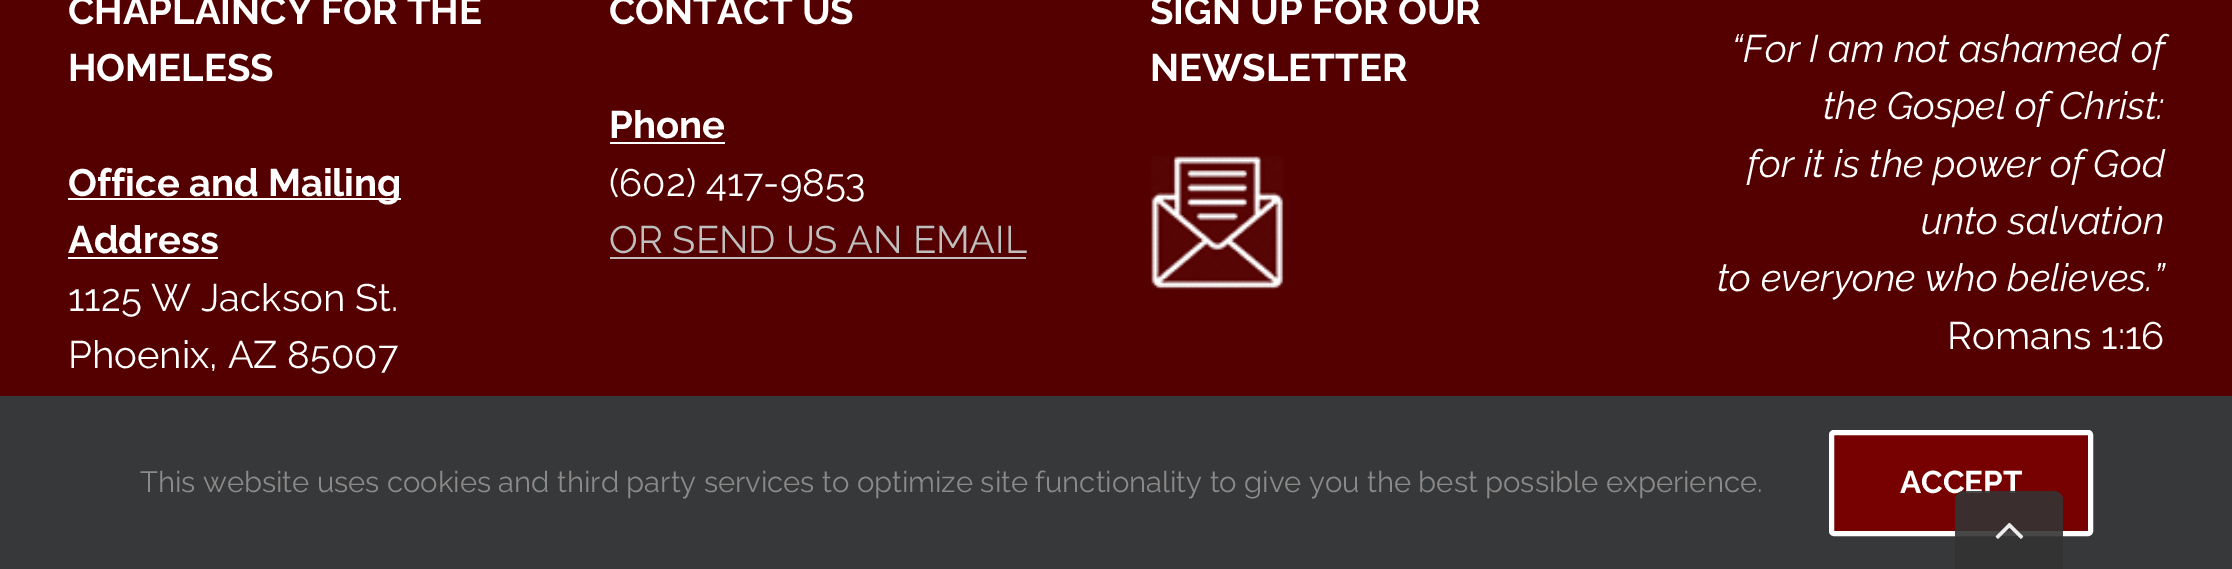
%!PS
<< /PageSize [2232 569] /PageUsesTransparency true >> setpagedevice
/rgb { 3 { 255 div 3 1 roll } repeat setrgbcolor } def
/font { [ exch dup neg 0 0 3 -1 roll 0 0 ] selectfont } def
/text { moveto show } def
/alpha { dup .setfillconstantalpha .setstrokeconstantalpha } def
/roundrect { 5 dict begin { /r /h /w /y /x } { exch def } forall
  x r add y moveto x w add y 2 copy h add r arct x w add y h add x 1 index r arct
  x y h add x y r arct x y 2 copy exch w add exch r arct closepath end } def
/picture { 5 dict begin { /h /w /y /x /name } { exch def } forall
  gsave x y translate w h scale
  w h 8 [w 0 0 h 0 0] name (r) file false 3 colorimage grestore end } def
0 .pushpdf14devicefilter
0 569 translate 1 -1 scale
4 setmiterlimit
84 0 0 rgb
0 0 2232 569 rectfill
255 255 255 rgb
68 198 333 2 rectfill
68 257 150 2 rectfill
610 142 115 2 rectfill
191 191 191 rgb
610 257 416 2 rectfill
(img_01.rgb) 1151 156 133 134 picture
54 56 57 rgb
0 396 2232 173 rectfill
119 1 1 rgb
1831.5 432.5 259 101 2.5 roundrect gsave fill grestore
255 255 255 rgb
5 setlinewidth
stroke
/Raleway-Bold 38.25 font
(CHAPLAINCY FOR THE) 68 24 text
(HOMELESS) 68 81 text
(Office and Mailing) 68 196 text
(Address) 68 253 text
/Raleway-Regular 38.25 font
(1125 W Jackson St.) 68 311 text
(Phoenix, AZ 85007) 68 368 text
/Raleway-Bold 38.25 font
(CONTACT US) 609 24 text
(Phone) 609 138 text
/Raleway-Regular 38.25 font
(\(602\) 417-9853) 609 196 text
191 191 191 rgb
(OR SEND US AN EMAIL) 609 253 text
/Raleway-Bold 38.25 font
255 255 255 rgb
(SIGN UP FOR OUR) 1150 24 text
(NEWSLETTER) 1150 81 text
/Raleway-Italic 38.25 font
(“For I am not ashamed of) 1731 62 text
(the Gospel of Christ:) 1823 119 text
(for it is the power of God) 1747 177 text
(unto salvation) 1921 234 text
(to everyone who believes.”) 1717 291 text
/Raleway-Regular 38.25 font
(Romans 1:16) 1947 349 text
/Raleway-Regular 29.25 font
140 137 137 rgb
(This website uses cookies and third party services to optimize site functionality to give you the best possible experience.) 140 492 text
/Raleway-Bold 31.5 font
255 255 255 rgb
(ACCEPT) 1900 493 text
0.9 alpha
51 51 51 rgb
1964 491 moveto 90 0 rlineto 5 0 9 4 9 9 rcurveto 0 69 rlineto -108 0 rlineto 0 -69 rlineto 0 -5 4 -9 9 -9 rcurveto closepath fill
1 alpha
(img_02.rgb) 1995 522 29 17 picture
.poppdf14devicefilter showpage
